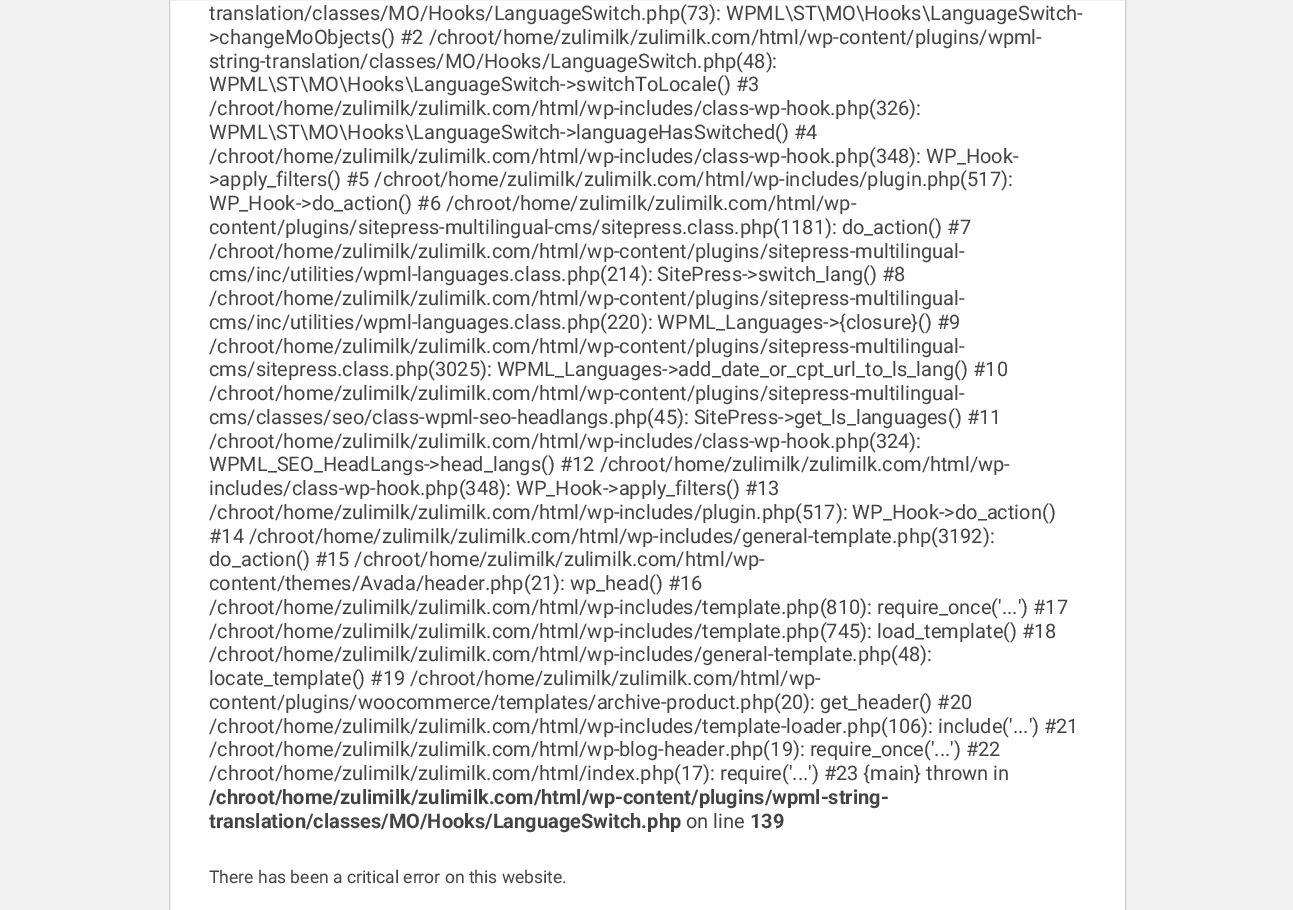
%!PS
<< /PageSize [1293 910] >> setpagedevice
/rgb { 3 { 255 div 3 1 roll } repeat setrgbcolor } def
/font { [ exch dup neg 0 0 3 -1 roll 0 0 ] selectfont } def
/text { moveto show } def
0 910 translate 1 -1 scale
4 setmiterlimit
241 241 241 rgb
0 0 1293 910 rectfill
255 255 255 rgb
169.5 -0.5 moveto 956 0 rlineto 0 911 rlineto -956 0 rlineto closepath gsave fill grestore
204 208 212 rgb
stroke
/Roboto-Regular 20 font
68 68 68 rgb
(translation/classes/MO/Hooks/LanguageSwitch.php\(73\): WPML\\ST\\MO\\Hooks\\LanguageSwitch-) 209 20 text
(>changeMoObjects\(\) #2 /chroot/home/zulimilk/zulimilk.com/html/wp-content/plugins/wpml-) 209 44 text
(string-translation/classes/MO/Hooks/LanguageSwitch.php\(48\):) 209 68 text
(WPML\\ST\\MO\\Hooks\\LanguageSwitch->switchToLocale\(\) #3) 209 91 text
(/chroot/home/zulimilk/zulimilk.com/html/wp-includes/class-wp-hook.php\(326\):) 209 115 text
(WPML\\ST\\MO\\Hooks\\LanguageSwitch->languageHasSwitched\(\) #4) 209 139 text
(/chroot/home/zulimilk/zulimilk.com/html/wp-includes/class-wp-hook.php\(348\): WP_Hook-) 209 163 text
(>apply_filters\(\) #5 /chroot/home/zulimilk/zulimilk.com/html/wp-includes/plugin.php\(517\):) 209 186 text
(WP_Hook->do_action\(\) #6 /chroot/home/zulimilk/zulimilk.com/html/wp-) 209 210 text
(content/plugins/sitepress-multilingual-cms/sitepress.class.php\(1181\): do_action\(\) #7) 209 234 text
(/chroot/home/zulimilk/zulimilk.com/html/wp-content/plugins/sitepress-multilingual-) 209 258 text
(cms/inc/utilities/wpml-languages.class.php\(214\): SitePress->switch_lang\(\) #8) 209 281 text
(/chroot/home/zulimilk/zulimilk.com/html/wp-content/plugins/sitepress-multilingual-) 209 305 text
(cms/inc/utilities/wpml-languages.class.php\(220\): WPML_Languages->{closure}\(\) #9) 209 329 text
(/chroot/home/zulimilk/zulimilk.com/html/wp-content/plugins/sitepress-multilingual-) 209 353 text
(cms/sitepress.class.php\(3025\): WPML_Languages->add_date_or_cpt_url_to_ls_lang\(\) #10) 209 376 text
(/chroot/home/zulimilk/zulimilk.com/html/wp-content/plugins/sitepress-multilingual-) 209 400 text
(cms/classes/seo/class-wpml-seo-headlangs.php\(45\): SitePress->get_ls_languages\(\) #11) 209 424 text
(/chroot/home/zulimilk/zulimilk.com/html/wp-includes/class-wp-hook.php\(324\):) 209 448 text
(WPML_SEO_HeadLangs->head_langs\(\) #12 /chroot/home/zulimilk/zulimilk.com/html/wp-) 209 471 text
(includes/class-wp-hook.php\(348\): WP_Hook->apply_filters\(\) #13) 209 495 text
(/chroot/home/zulimilk/zulimilk.com/html/wp-includes/plugin.php\(517\): WP_Hook->do_action\(\)) 209 519 text
(#14 /chroot/home/zulimilk/zulimilk.com/html/wp-includes/general-template.php\(3192\):) 209 543 text
(do_action\(\) #15 /chroot/home/zulimilk/zulimilk.com/html/wp-) 209 566 text
(content/themes/Avada/header.php\(21\): wp_head\(\) #16) 209 590 text
(/chroot/home/zulimilk/zulimilk.com/html/wp-includes/template.php\(810\): require_once\('...'\) #17) 209 614 text
(/chroot/home/zulimilk/zulimilk.com/html/wp-includes/template.php\(745\): load_template\(\) #18) 209 638 text
(/chroot/home/zulimilk/zulimilk.com/html/wp-includes/general-template.php\(48\):) 209 661 text
(locate_template\(\) #19 /chroot/home/zulimilk/zulimilk.com/html/wp-) 209 685 text
(content/plugins/woocommerce/templates/archive-product.php\(20\): get_header\(\) #20) 209 709 text
(/chroot/home/zulimilk/zulimilk.com/html/wp-includes/template-loader.php\(106\): include\('...'\) #21) 209 733 text
(/chroot/home/zulimilk/zulimilk.com/html/wp-blog-header.php\(19\): require_once\('...'\) #22) 209 756 text
(/chroot/home/zulimilk/zulimilk.com/html/index.php\(17\): require\('...'\) #23 {main} thrown in) 209 780 text
/Roboto-Bold 20 font
(/chroot/home/zulimilk/zulimilk.com/html/wp-content/plugins/wpml-string-) 209 804 text
(translation/classes/MO/Hooks/LanguageSwitch.php) 209 828 text
/Roboto-Regular 20 font
(on line) 686 828 text
/Roboto-Bold 20 font
(139) 750 828 text
/Roboto-Regular 17.5 font
(There has been a critical error on this website.) 209 883 text
showpage
